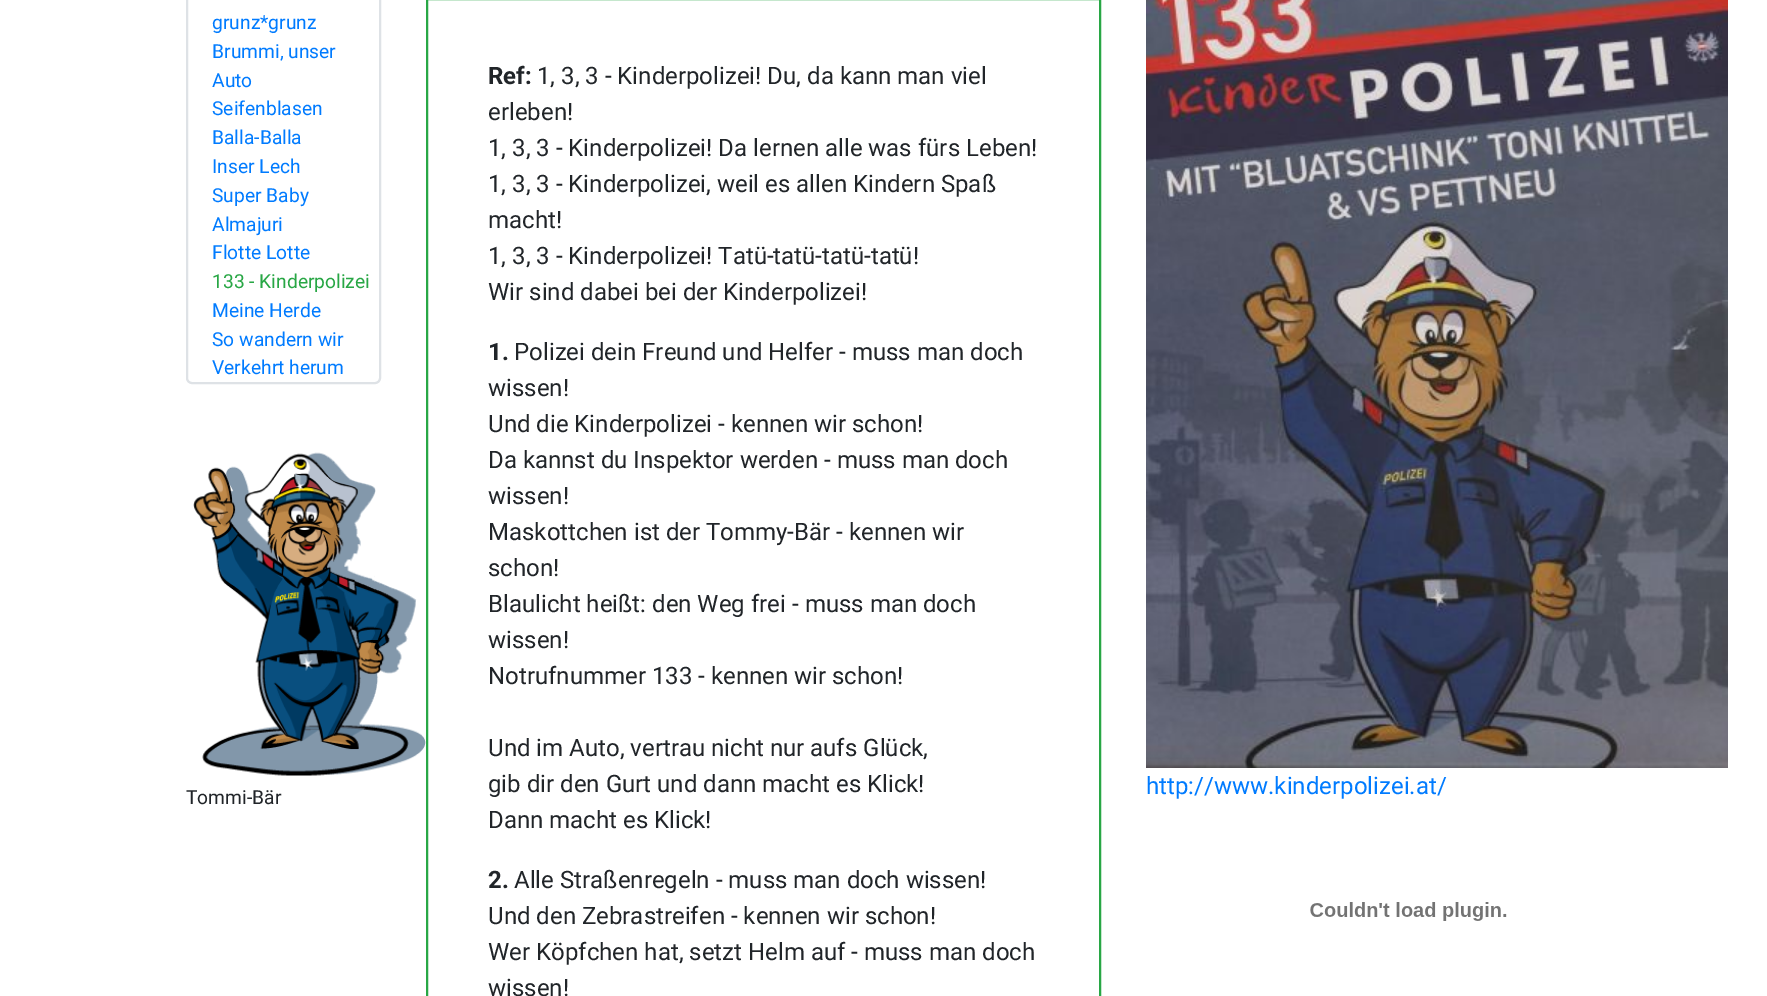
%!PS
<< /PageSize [1767 996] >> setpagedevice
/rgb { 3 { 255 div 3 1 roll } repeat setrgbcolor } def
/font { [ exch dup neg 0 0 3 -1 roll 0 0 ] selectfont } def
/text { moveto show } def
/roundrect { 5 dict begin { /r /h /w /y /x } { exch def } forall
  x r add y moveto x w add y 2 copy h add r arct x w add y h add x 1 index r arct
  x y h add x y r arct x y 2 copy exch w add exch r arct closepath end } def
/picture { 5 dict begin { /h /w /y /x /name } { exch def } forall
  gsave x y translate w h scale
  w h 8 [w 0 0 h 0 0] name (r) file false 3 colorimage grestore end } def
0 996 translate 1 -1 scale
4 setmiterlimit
255 255 255 rgb
0 0 1767 996 rectfill
222 226 230 rgb
2 setlinewidth
187 -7 193 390 5 roundrect stroke
(img_01.rgb) 193 452 233 324 picture
40 167 69 rgb
427 -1 673 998 rectstroke
(img_02.rgb) 1146 0 582 768 picture
(img_03.rgb) 1310 902 197 19 picture
/Roboto-Regular 19.25 font
0 123 255 rgb
(grunz*grunz) 212 29 text
(Brummi, unser) 212 58 text
(Auto) 212 87 text
(Seifenblasen) 212 115 text
(Balla-Balla) 212 144 text
(Inser Lech) 212 173 text
(Super Baby) 212 202 text
(Almajuri) 212 231 text
(Flotte Lotte) 212 259 text
40 167 69 rgb
(133 - Kinderpolizei) 212 288 text
0 123 255 rgb
(Meine Herde) 212 317 text
(So wandern wir) 212 346 text
(Verkehrt herum) 212 374 text
33 37 41 rgb
(Tommi-Bär) 186 804 text
/Roboto-Bold 24 font
(Ref:) 488 84 text
/Roboto-Regular 24 font
(1, 3, 3 - Kinderpolizei! Du, da kann man viel) 537 84 text
(erleben!) 488 120 text
(1, 3, 3 - Kinderpolizei! Da lernen alle was fürs Leben!) 488 156 text
(1, 3, 3 - Kinderpolizei, weil es allen Kindern Spaß) 488 192 text
(macht!) 488 228 text
(1, 3, 3 - Kinderpolizei! Tatü-tatü-tatü-tatü!) 488 264 text
(Wir sind dabei bei der Kinderpolizei!) 488 300 text
/Roboto-Bold 24 font
(1.) 488 360 text
/Roboto-Regular 24 font
(Polizei dein Freund und Helfer - muss man doch) 514 360 text
(wissen!) 488 396 text
(Und die Kinderpolizei - kennen wir schon!) 488 432 text
(Da kannst du Inspektor werden - muss man doch) 488 468 text
(wissen!) 488 504 text
(Maskottchen ist der Tommy-Bär - kennen wir) 488 540 text
(schon!) 488 576 text
(Blaulicht heißt: den Weg frei - muss man doch) 488 612 text
(wissen!) 488 648 text
(Notrufnummer 133 - kennen wir schon!) 488 684 text
(Und im Auto, vertrau nicht nur aufs Glück,) 488 756 text
(gib dir den Gurt und dann macht es Klick!) 488 792 text
(Dann macht es Klick!) 488 828 text
/Roboto-Bold 24 font
(2.) 488 888 text
/Roboto-Regular 24 font
(Alle Straßenregeln - muss man doch wissen!) 514 888 text
(Und den Zebrastreifen - kennen wir schon!) 488 924 text
(Wer Köpfchen hat, setzt Helm auf - muss man doch) 488 960 text
(wissen!) 488 996 text
0 123 255 rgb
(http://www.kinderpolizei.at/) 1146 794 text
showpage
